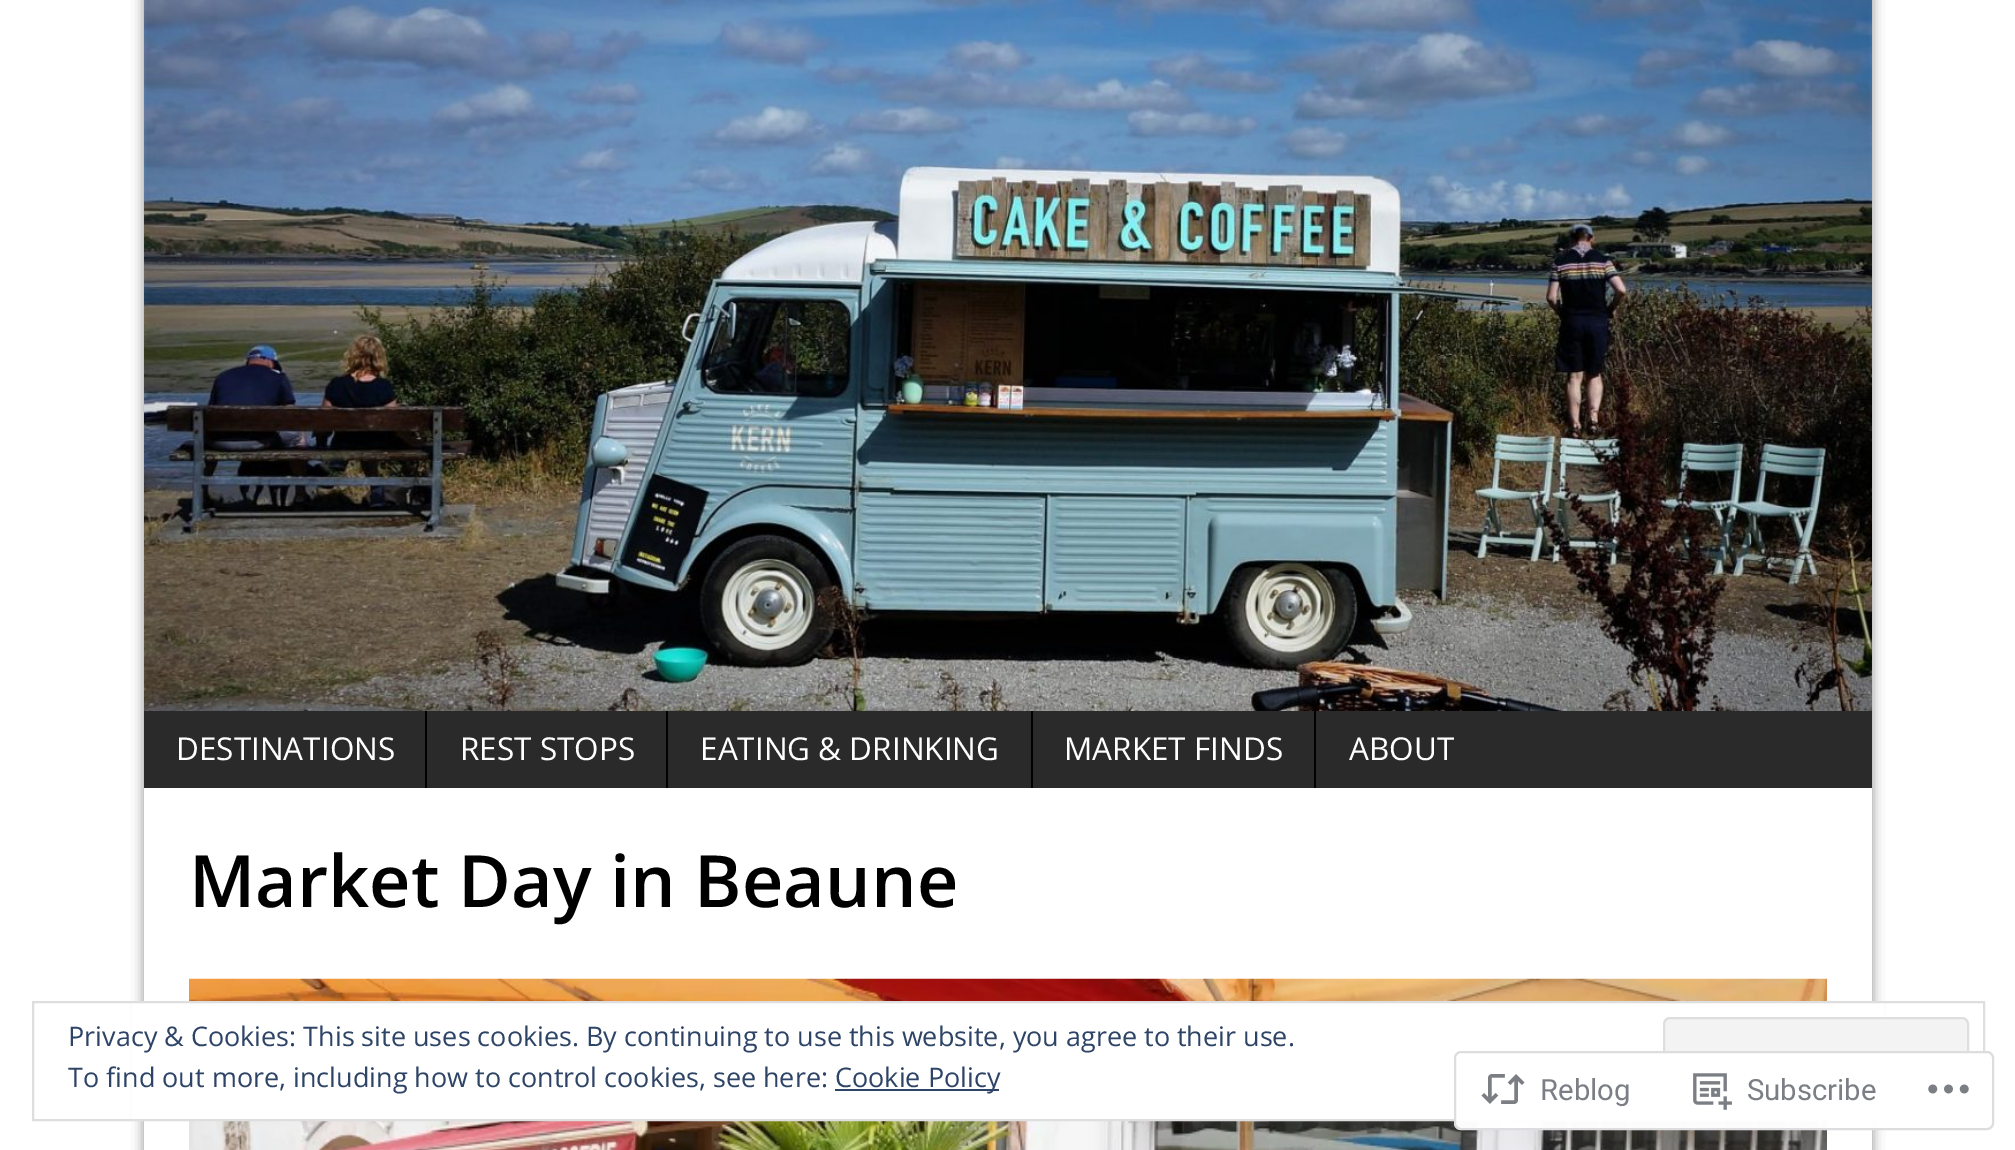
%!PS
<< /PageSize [2015 1150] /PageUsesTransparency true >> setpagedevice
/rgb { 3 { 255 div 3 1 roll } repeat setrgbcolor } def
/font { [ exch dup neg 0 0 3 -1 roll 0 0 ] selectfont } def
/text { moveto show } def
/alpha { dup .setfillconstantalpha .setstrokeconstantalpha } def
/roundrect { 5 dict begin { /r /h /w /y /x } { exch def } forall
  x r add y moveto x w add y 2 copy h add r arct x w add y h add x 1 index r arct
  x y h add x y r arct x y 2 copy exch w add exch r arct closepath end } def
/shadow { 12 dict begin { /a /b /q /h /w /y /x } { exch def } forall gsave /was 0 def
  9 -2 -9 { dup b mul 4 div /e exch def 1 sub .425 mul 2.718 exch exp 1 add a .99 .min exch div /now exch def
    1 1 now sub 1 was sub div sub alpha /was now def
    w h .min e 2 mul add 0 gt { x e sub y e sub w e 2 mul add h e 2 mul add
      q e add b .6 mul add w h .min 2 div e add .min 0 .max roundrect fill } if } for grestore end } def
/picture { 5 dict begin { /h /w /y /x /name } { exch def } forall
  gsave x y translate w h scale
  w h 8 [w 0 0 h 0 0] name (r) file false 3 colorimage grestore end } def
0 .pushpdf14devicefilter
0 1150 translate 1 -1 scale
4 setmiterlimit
255 255 255 rgb
0 0 2015 1150 rectfill
gsave
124 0 moveto 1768 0 rlineto 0 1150 rlineto -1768 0 rlineto closepath 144 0 moveto 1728 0 rlineto 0 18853 rlineto -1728 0 rlineto closepath eoclip newpath
168 168 168 rgb
142 -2 1732 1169 0 5.5 1 shadow
grestore
(img_01.rgb) 144 0 1728 711 picture
42 42 42 rgb
144 711 1728 77 rectfill
0 0 0 rgb
425 711 2 77 rectfill
666 711 2 77 rectfill
1031 711 2 77 rectfill
1314 711 2 77 rectfill
(img_02.rgb) 189 978 1638 172 picture
255 255 255 rgb
132 1003 1752 116 rectfill
222 222 222 rgb
2 setlinewidth
33 1002 1951 118 rectstroke
243 243 243 rgb
1664 1018 304 86 6 roundrect gsave fill grestore
222 222 222 rgb
stroke
46 68 103 rgb
835 1089 164 2 rectfill
0.98 alpha
255 255 255 rgb
1454 1051 540 79 7 roundrect fill
220 220 222 rgb
1455 1052 538 77 6 roundrect stroke
1 alpha
(img_03.rgb) 1481 1074 44 30 picture
(img_04.rgb) 1693 1073 39 37 picture
(img_05.rgb) 1928 1084 41 10 picture
/OpenSans-Regular 31.5 font
255 255 255 rgb
(DESTINATIONS) 176 760 text
(REST STOPS) 460 760 text
(EATING & DRINKING) 700 760 text
(MARKET FINDS) 1064 760 text
(ABOUT) 1349 760 text
/OpenSans-SemiBold 72 font
0 0 0 rgb
(Market Day in Beaune) 189 907 text
/OpenSans-Regular 27 font
46 68 103 rgb
(Privacy & Cookies: This site uses cookies. By continuing to use this website, you agree to their use.) 68 1046 text
(To find out more, including how to control cookies, see here:) 68 1087 text
(Cookie Policy) 835 1087 text
/Roboto-Regular 29.25 font
123 127 133 rgb
(Reblog) 1540 1100 text
(Subscribe) 1747 1100 text
.poppdf14devicefilter showpage
